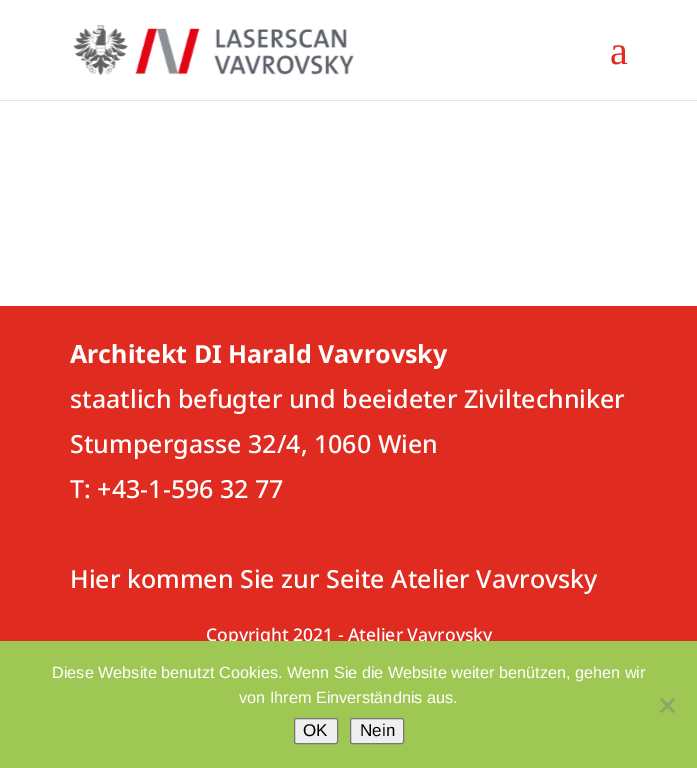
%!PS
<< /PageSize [697 768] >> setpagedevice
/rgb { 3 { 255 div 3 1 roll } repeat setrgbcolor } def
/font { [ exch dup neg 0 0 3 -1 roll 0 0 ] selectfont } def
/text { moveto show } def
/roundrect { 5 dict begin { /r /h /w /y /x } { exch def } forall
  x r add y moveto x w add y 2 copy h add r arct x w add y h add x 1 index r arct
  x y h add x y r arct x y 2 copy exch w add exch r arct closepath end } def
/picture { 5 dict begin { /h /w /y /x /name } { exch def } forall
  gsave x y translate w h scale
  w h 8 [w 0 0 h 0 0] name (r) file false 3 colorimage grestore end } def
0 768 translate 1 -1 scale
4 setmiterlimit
224 43 32 rgb
0 0 697 768 rectfill
230 230 230 rgb
0 100 moveto 0 1 rlineto 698 0 rlineto 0 -100 rlineto 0 99 rlineto closepath fill
255 255 255 rgb
0 0 697 100 rectfill
(img_01.rgb) 73 25 281 50 picture
0 101 697 205 rectfill
/LiberationSerif-Regular 40 font
224 43 32 rgb
(a) 610 64 text
/NotoSans-Bold 25 font
255 255 255 rgb
(Architekt DI Harald Vavrovsky) 70 363 text
/NotoSans-Medium 25 font
(staatlich befugter und beeideter Ziviltechniker) 70 408 text
(Stumpergasse 32/4, 1060 Wien) 70 453 text
(T: +43-1-596 32 77) 70 498 text
(Hier kommen Sie zur Seite Atelier Vavrovsky) 70 588 text
/NotoSans-Medium 17.5 font
(Copyright 2021 - Atelier Vavrovsky) 206 641 text
159 199 84 rgb
0 641 697 127 rectfill
/LiberationSans-Regular 16.25 font
255 255 255 rgb
(Diese Website benutzt Cookies. Wenn Sie die Website weiter benützen, gehen wir) 52 678 text
(von Ihrem Einverständnis aus.) 239 703 text
144 164 106 rgb
673 698 moveto 2 2 rlineto -13 13 rlineto -2 -1.5 rlineto closepath fill
660 700 moveto 2 -2 rlineto 13 13.5 rlineto -2 1.5 rlineto closepath fill
239 239 239 rgb
294.5 718.5 43 25 2 roundrect gsave fill grestore
118 118 118 rgb
stroke
/LiberationSans-Regular 17 font
0 0 0 rgb
(OK) 303 736 text
239 239 239 rgb
350.5 718.5 53 25 2 roundrect gsave fill grestore
118 118 118 rgb
stroke
0 0 0 rgb
(Nein) 360 736 text
showpage
